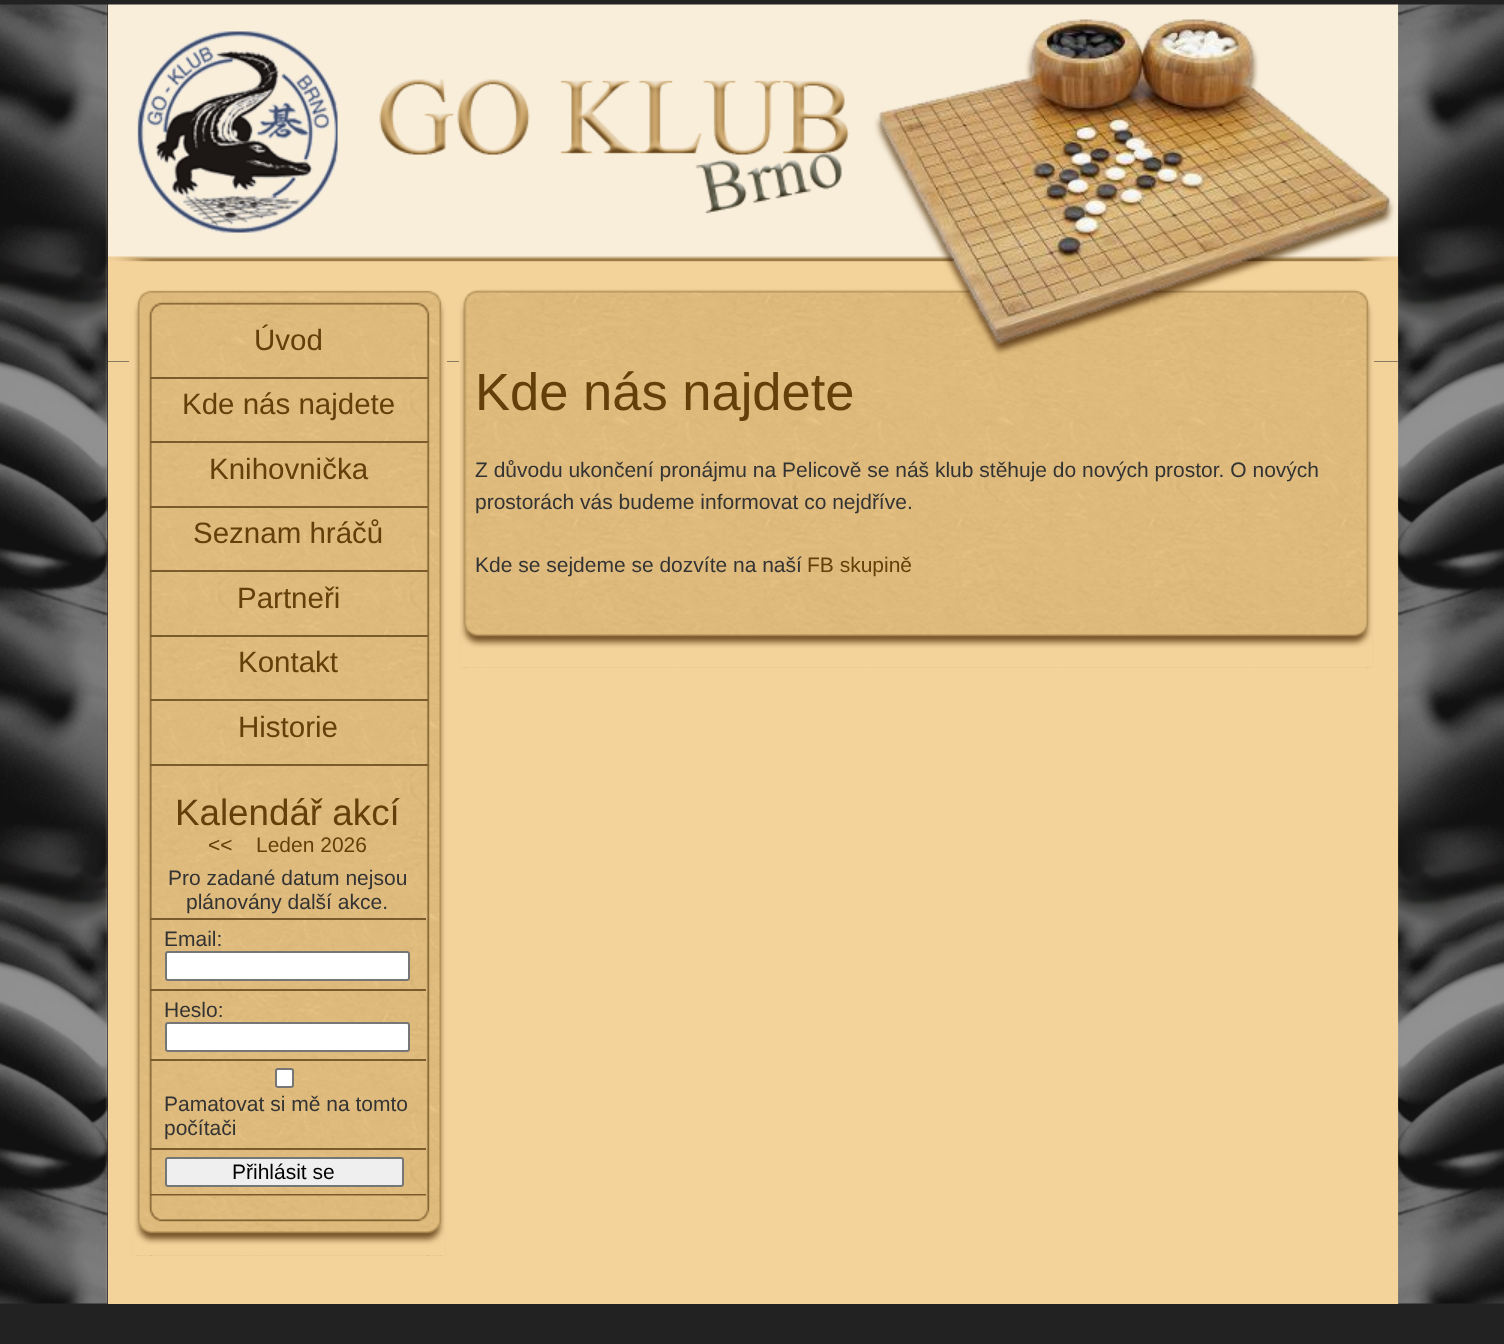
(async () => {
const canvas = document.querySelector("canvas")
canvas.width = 1504
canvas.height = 1344
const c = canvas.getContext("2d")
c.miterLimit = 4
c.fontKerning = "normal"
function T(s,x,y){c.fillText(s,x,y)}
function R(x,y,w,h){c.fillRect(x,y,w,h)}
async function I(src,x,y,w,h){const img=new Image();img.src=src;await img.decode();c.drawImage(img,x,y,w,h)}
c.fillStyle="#222"
R(0,0,1504,1344)
await I("1.png",0,4,1504,1300)
await I("2.png",108,4,1290,358)
c.fillStyle="#f3d39a"
R(108,362,1290,942)
await I("3.png",129,313,318,943)
c.fillStyle="#7b5b2b"
R(150,377,278,2)
c.font="29.5px Liberation Sans"
c.fillStyle="#63400a"
T("Úvod",254,350)
c.fillStyle="#7b5b2b"
R(150,441,278,2)
c.fillStyle="#63400a"
T("Kde nás najdete",182,414)
c.fillStyle="#7b5b2b"
R(150,506,278,2)
c.fillStyle="#63400a"
T("Knihovnička",209,479)
c.fillStyle="#7b5b2b"
R(150,570,278,2)
c.fillStyle="#63400a"
T("Seznam hráčů",193,543)
c.fillStyle="#7b5b2b"
R(150,635,278,2)
c.fillStyle="#63400a"
T("Partneři",237,608)
c.fillStyle="#7b5b2b"
R(150,699,278,2)
c.fillStyle="#63400a"
T("Kontakt",238,672)
c.fillStyle="#7b5b2b"
R(150,764,278,2)
c.fillStyle="#63400a"
T("Historie",238,737)
c.font="36.75px Liberation Sans"
T("Kalendář akcí",175,825)
c.font="21px Liberation Sans"
T("<<",208,852)
T("Leden 2026",256,852)
c.fillStyle="#7b5b2b"
R(150,918,276,2)
c.fillStyle="#333"
T("Pro zadané datum nejsou",168,885)
T("plánovány další akce.",186,909)
c.fillStyle="#7b5b2b"
R(150,989,276,2)
c.fillStyle="#333"
T("Email:",164,946)
c.fillStyle="#fff"
c.beginPath()
c.roundRect(166,952,243,28,2)
c.fill()
c.strokeStyle="#767676"
c.lineWidth=2
c.stroke()
c.fillStyle="#7b5b2b"
R(150,1059,276,2)
c.fillStyle="#333"
T("Heslo:",164,1017)
c.fillStyle="#fff"
c.beginPath()
c.roundRect(166,1023,243,28,2)
c.fill()
c.stroke()
c.fillStyle="#7b5b2b"
R(150,1148,276,2)
c.fillStyle="#fff"
c.beginPath()
c.roundRect(276,1069,17,18,2)
c.fill()
c.stroke()
c.fillStyle="#333"
T("Pamatovat si mě na tomto",164,1111)
T("počítači",164,1135)
c.fillStyle="#7b5b2b"
R(150,1194,276,2)
c.fillStyle="#efefef"
c.beginPath()
c.roundRect(166,1158,237,28,2)
c.fill()
c.stroke()
c.fillStyle="#000"
T("Přihlásit se",232,1179)
await I("4.png",134,1195,311,61)
await I("5.png",459,360,915,308)
c.font="52.5px Liberation Sans"
c.fillStyle="#63400a"
T("Kde nás najdete",475,410)
c.font="21px Liberation Sans"
c.fillStyle="#333"
T("Z důvodu ukončení pronájmu na Pelicově se náš klub stěhuje do nových prostor. O nových",475,477)
T("prostorách vás budeme informovat co nejdříve.",475,509)
T("Kde se sejdeme se dozvíte na naší",475,572)
c.fillStyle="#63400a"
T("FB skupině",807,572)
await I("6.png",460,580,912,88)
})()
